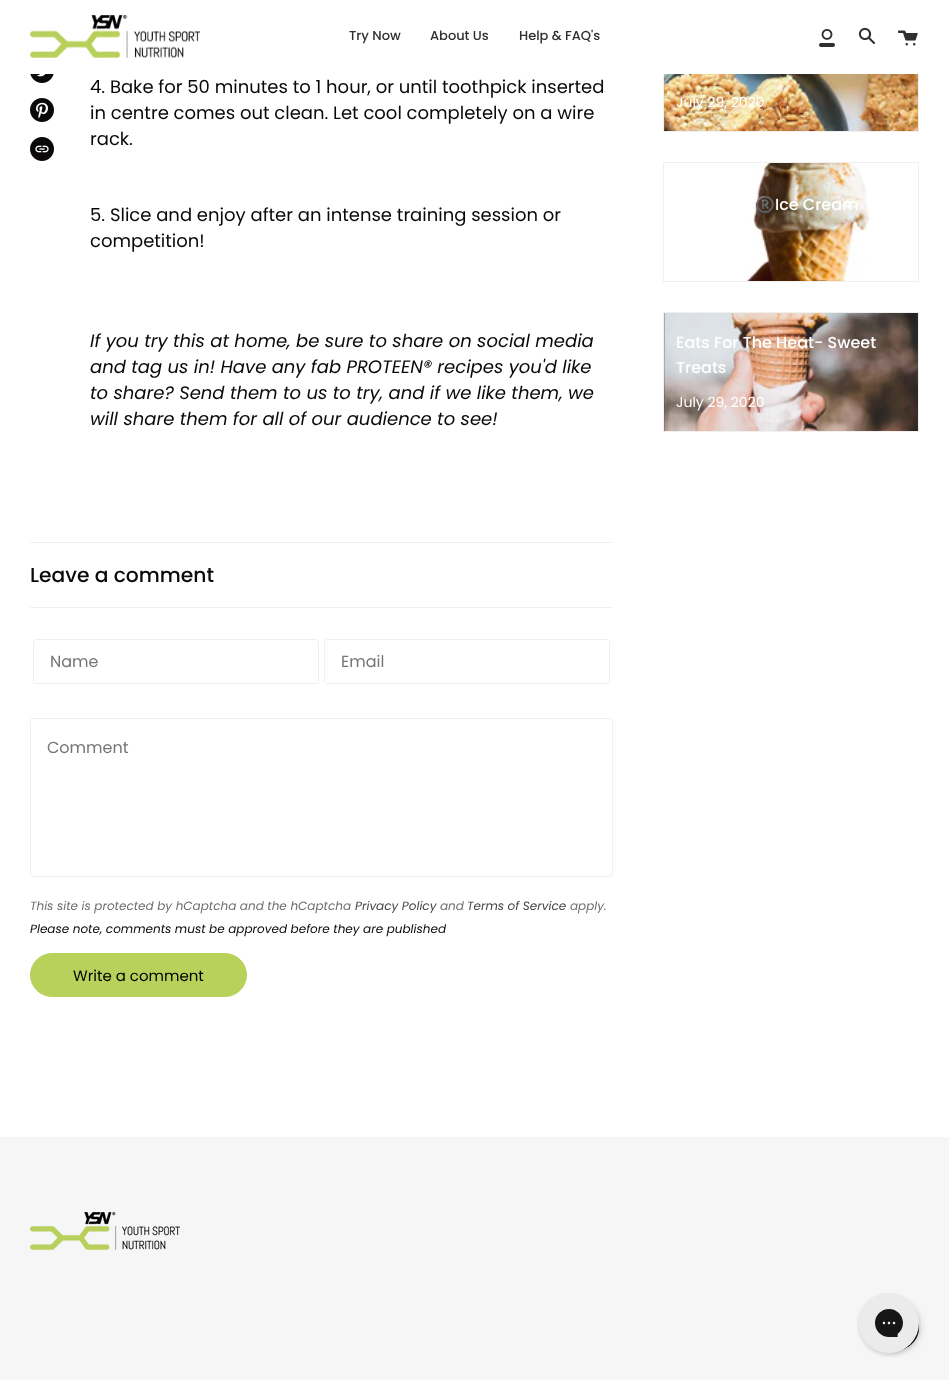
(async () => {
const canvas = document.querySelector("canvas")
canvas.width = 949
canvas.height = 1380
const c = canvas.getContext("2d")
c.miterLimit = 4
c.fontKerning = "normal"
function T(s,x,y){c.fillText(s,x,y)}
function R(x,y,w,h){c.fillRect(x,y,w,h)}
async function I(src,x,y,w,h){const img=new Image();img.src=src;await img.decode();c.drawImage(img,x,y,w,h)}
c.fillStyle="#fff"
R(0,0,949,1380)
c.strokeStyle="#f0f0f0"
c.strokeRect(663.5,12.5,255,119)
R(663,12,256,62)
await I("1.png",30,15,170,43)
c.font="500 13px Poppins"
c.fillStyle="#2f2f2f"
T("Try Now",349,40)
T("About Us",430,40)
T("Help & FAQ's",519,40)
await I("2.png",819,29,16,18)
await I("3.png",858,27,17,17)
await I("4.png",898,30,20,16)
await I("5.png",30,74,24,9)
await I("6.png",30,98,24,24)
await I("7.png",30,137,24,24)
c.font="18px Poppins"
c.fillStyle="#0a0808"
T("4. Bake for 50 minutes to 1 hour, or until toothpick inserted",90,93)
T("in centre comes out clean. Let cool completely on a wire",90,119)
T("rack.",90,145)
T("5. Slice and enjoy after an intense training session or",90,221)
T("competition!",90,247)
c.font="italic 18px Poppins"
T("If you try this at home, be sure to share on social media",90,347)
T("and tag us in! Have any fab PROTEEN® recipes you'd like",90,373)
T("to share? Send them to us to try, and if we like them, we",90,399)
T("will share them for all of our audience to see!",90,425)
await I("8.png",664,74,254,57)
c.font="14px Poppins"
c.fillStyle="#fff"
T("July 29, 2020",676,107)
c.strokeRect(663.5,162.5,255,119)
await I("9.png",745,163,126,118)
c.font="16px Noto Color Emoji"
T("®️",755,210)
c.font="500 16px Poppins"
T("Ice Cream",775,210)
c.strokeRect(663.5,312.5,255,119)
await I("10.png",664,313,254,118)
T("Eats For The Heat- Sweet",676,348)
T("Treats",676,373)
c.font="14px Poppins"
T("July 29, 2020",676,407)
c.fillStyle="#f0f0f0"
R(30,542,583,1)
c.font="500 20.25px Poppins"
c.fillStyle="#0a0808"
T("Leave a comment",30,582)
c.fillStyle="#f0f0f0"
R(30,607,583,1)
c.beginPath()
c.roundRect(33.5,639.5,285,44,2.5)
c.stroke()
c.font="16px Poppins"
c.fillStyle="#757575"
T("Name",50,667)
c.beginPath()
c.roundRect(324.5,639.5,285,44,2.5)
c.stroke()
T("Email",341,667)
c.beginPath()
c.roundRect(30.5,718.5,582,158,2.5)
c.stroke()
T("Comment",47,753)
c.font="italic 12px Poppins"
c.fillStyle="#6d6d6d"
T("This site is protected by hCaptcha and the hCaptcha",30,910)
c.fillStyle="#444"
T("Privacy Policy",355,910)
c.fillStyle="#6d6d6d"
T("and",440,910)
c.fillStyle="#444"
T("Terms of Service",467,910)
c.fillStyle="#6d6d6d"
T("apply.",570,910)
c.fillStyle="#0a0808"
T("Please note, comments must be approved before they are published",30,933)
c.fillStyle="#b8d15a"
c.beginPath()
c.roundRect(30.5,953.5,216,43,21.5)
c.fill()
c.strokeStyle="#b8d15a"
c.stroke()
c.font="15px Poppins"
c.fillStyle="#000"
T("Write a comment",73,981)
c.fillStyle="#f6f6f6"
R(0,1137,949,243)
await I("11.png",30,1212,150,38)
c.fillStyle="#00000033"
c.filter="blur(5px)"
c.beginPath()
c.roundRect(875,1306,44,44,22)
c.fill()
c.filter="none"
c.fillStyle="#0a0808"
c.beginPath()
c.arc(897,1328,21.5,0,7)
c.fill()
c.strokeStyle="#0a0808"
c.stroke()
await I("12.png",857,1293,64,64)
})()
